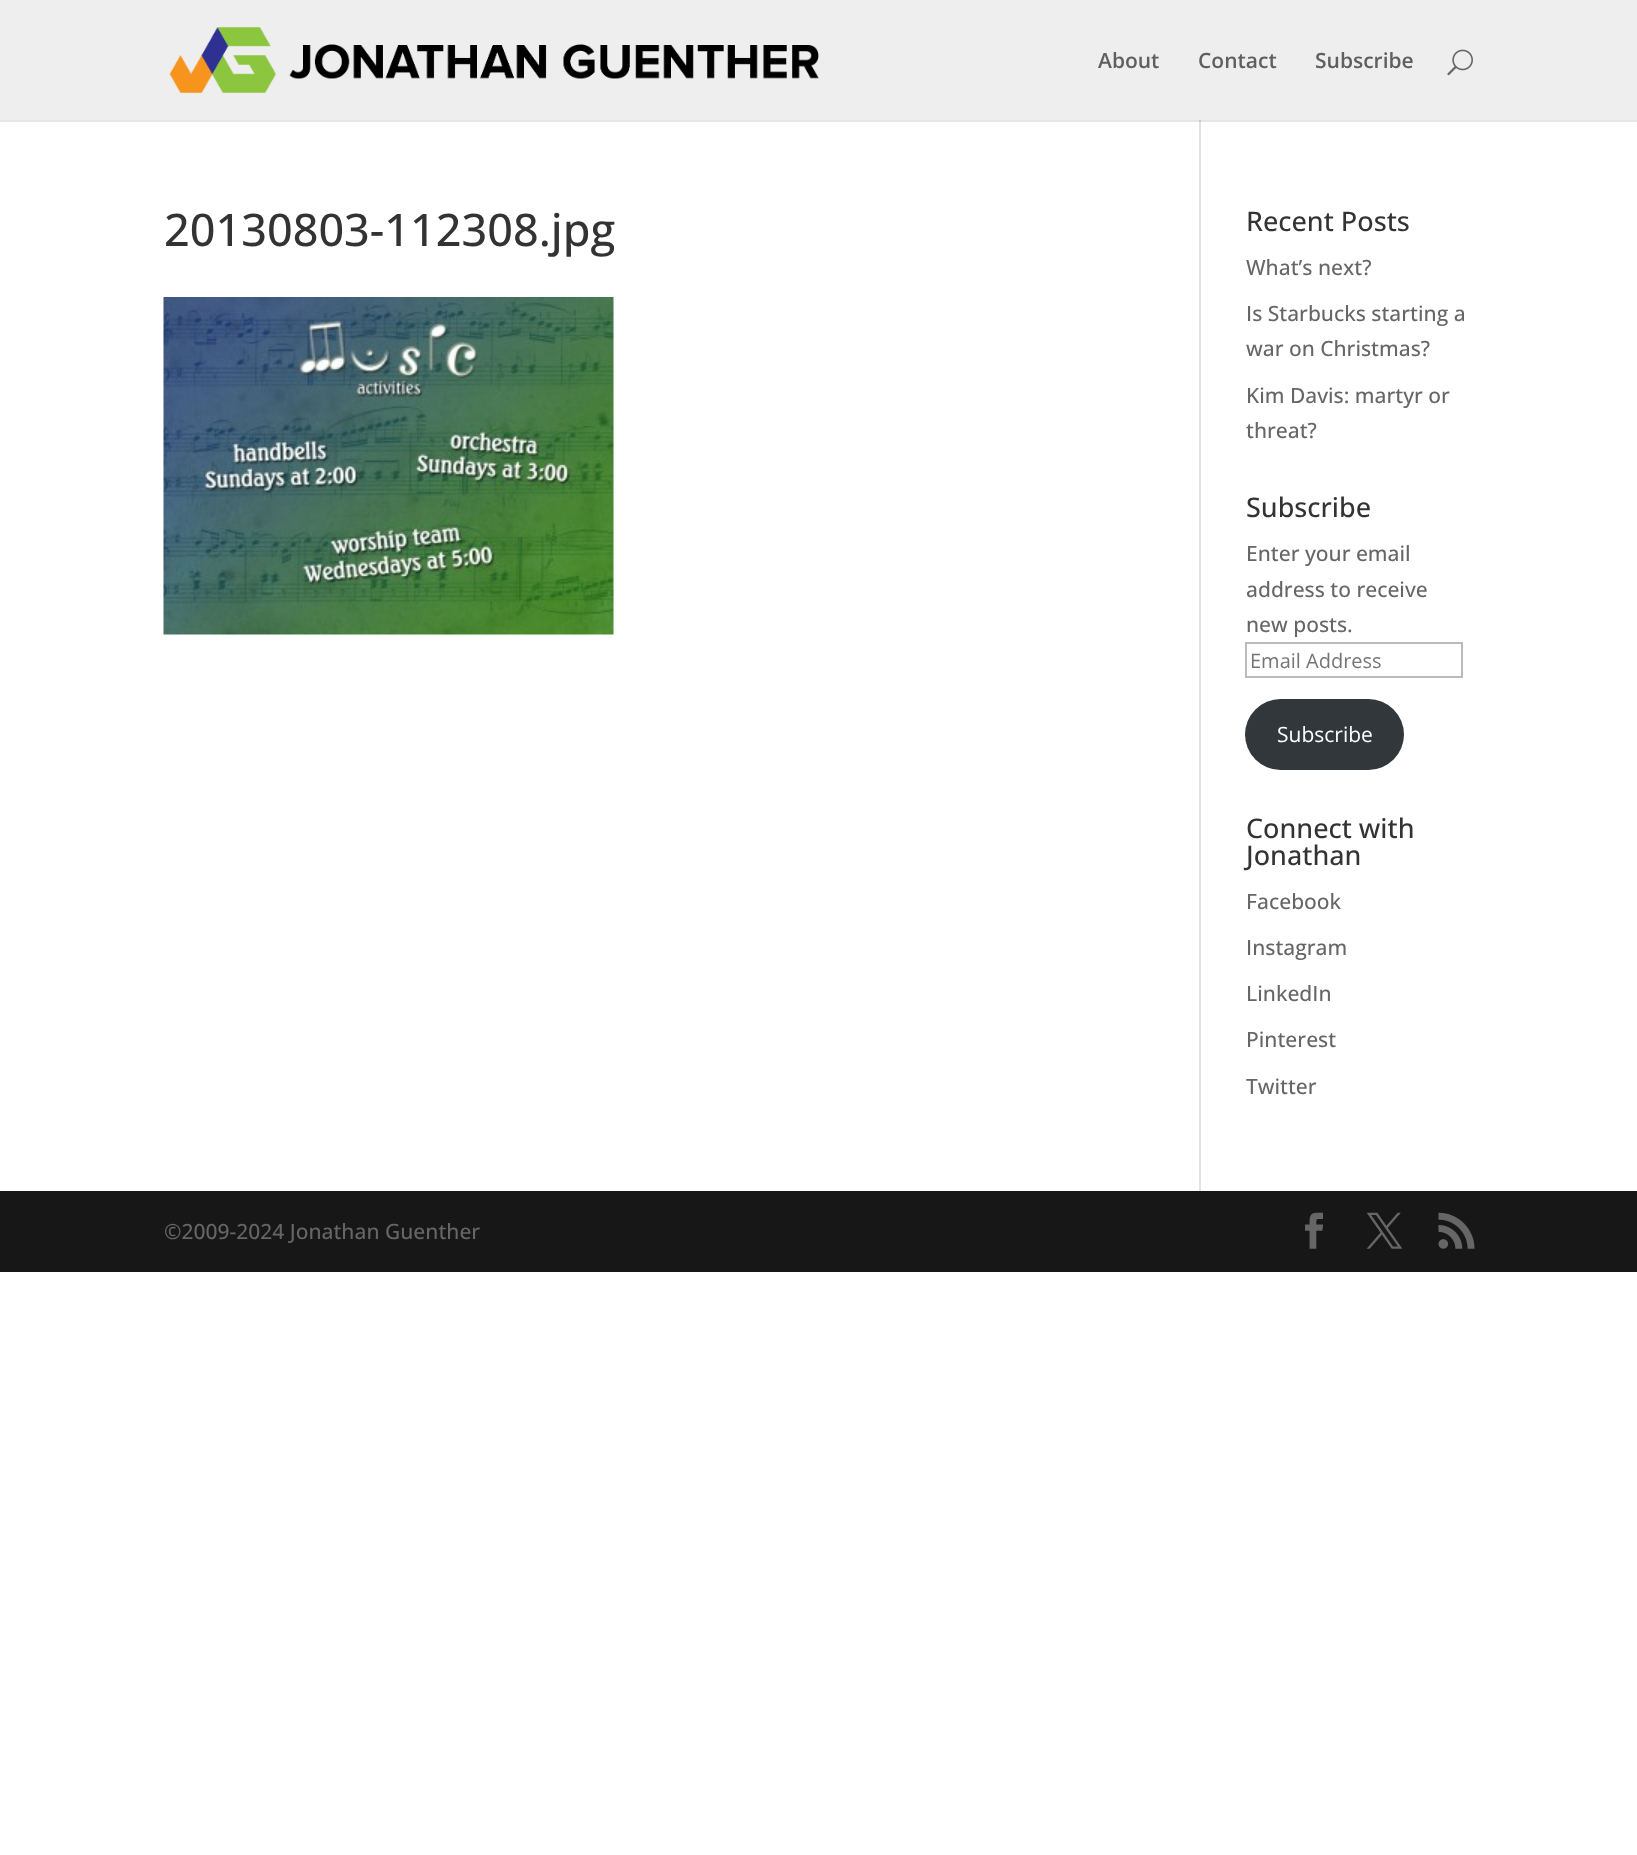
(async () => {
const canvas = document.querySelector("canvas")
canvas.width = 1637
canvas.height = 1855
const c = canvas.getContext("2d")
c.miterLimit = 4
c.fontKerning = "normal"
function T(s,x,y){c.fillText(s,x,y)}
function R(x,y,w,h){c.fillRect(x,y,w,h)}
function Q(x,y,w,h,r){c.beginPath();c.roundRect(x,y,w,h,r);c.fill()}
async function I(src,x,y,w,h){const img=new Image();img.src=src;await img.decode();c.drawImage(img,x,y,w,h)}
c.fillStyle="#fff"
R(0,0,1637,1855)
c.fillStyle="#e6e6e6"
R(0,120,1637,2)
c.fillStyle="#eee"
R(0,0,1637,120)
await I("1.png",169,27,650,66)
c.font="600 21px Open Sans"
c.fillStyle="#5f5f5f"
T("About",1098,68)
T("Contact",1198,68)
T("Subscribe",1315,68)
await I("2.png",1447,49,26,27)
c.fillStyle="#e2e2e2"
R(1199,120,2,1071)
c.fillStyle="#cbcbcb"
R(1199,120,2,2)
c.font="500 45px Open Sans"
c.fillStyle="#333"
T("20130803-112308.jpg",164,246)
await I("3.png",163,297,451,338)
c.font="500 27px Open Sans"
T("Recent Posts",1246,231)
c.font="500 21px Open Sans"
c.fillStyle="#666"
T("What’s next?",1246,275)
T("Is Starbucks starting a",1246,321)
T("war on Christmas?",1246,356)
T("Kim Davis: martyr or",1246,403)
T("threat?",1246,438)
c.font="500 27px Open Sans"
c.fillStyle="#333"
T("Subscribe",1246,517)
c.font="500 21px Open Sans"
c.fillStyle="#666"
T("Enter your email",1246,561)
T("address to receive",1246,597)
T("new posts.",1246,632)
c.strokeStyle="#bbb"
c.lineWidth=2
c.strokeRect(1246,643,216,34)
c.font="20px Open Sans"
c.fillStyle="#757575"
T("Email Address",1250,668)
c.fillStyle="#32373c"
Q(1245,699,159,71,35.5)
c.font="21px Open Sans"
c.fillStyle="#fff"
T("Subscribe",1277,742)
c.font="500 27px Open Sans"
c.fillStyle="#333"
T("Connect with",1246,838)
T("Jonathan",1246,865)
c.font="500 21px Open Sans"
c.fillStyle="#666"
T("Facebook",1246,909)
T("Instagram",1246,955)
T("LinkedIn",1246,1001)
T("Pinterest",1246,1047)
T("Twitter",1246,1094)
c.fillStyle="#171717"
R(0,1191,1637,81)
c.fillStyle="#666"
T("©2009-2024 Jonathan Guenther",164,1239)
await I("4.png",1305,1212,18,37)
await I("5.png",1366,1212,37,37)
await I("6.png",1438,1212,37,37)
})()
